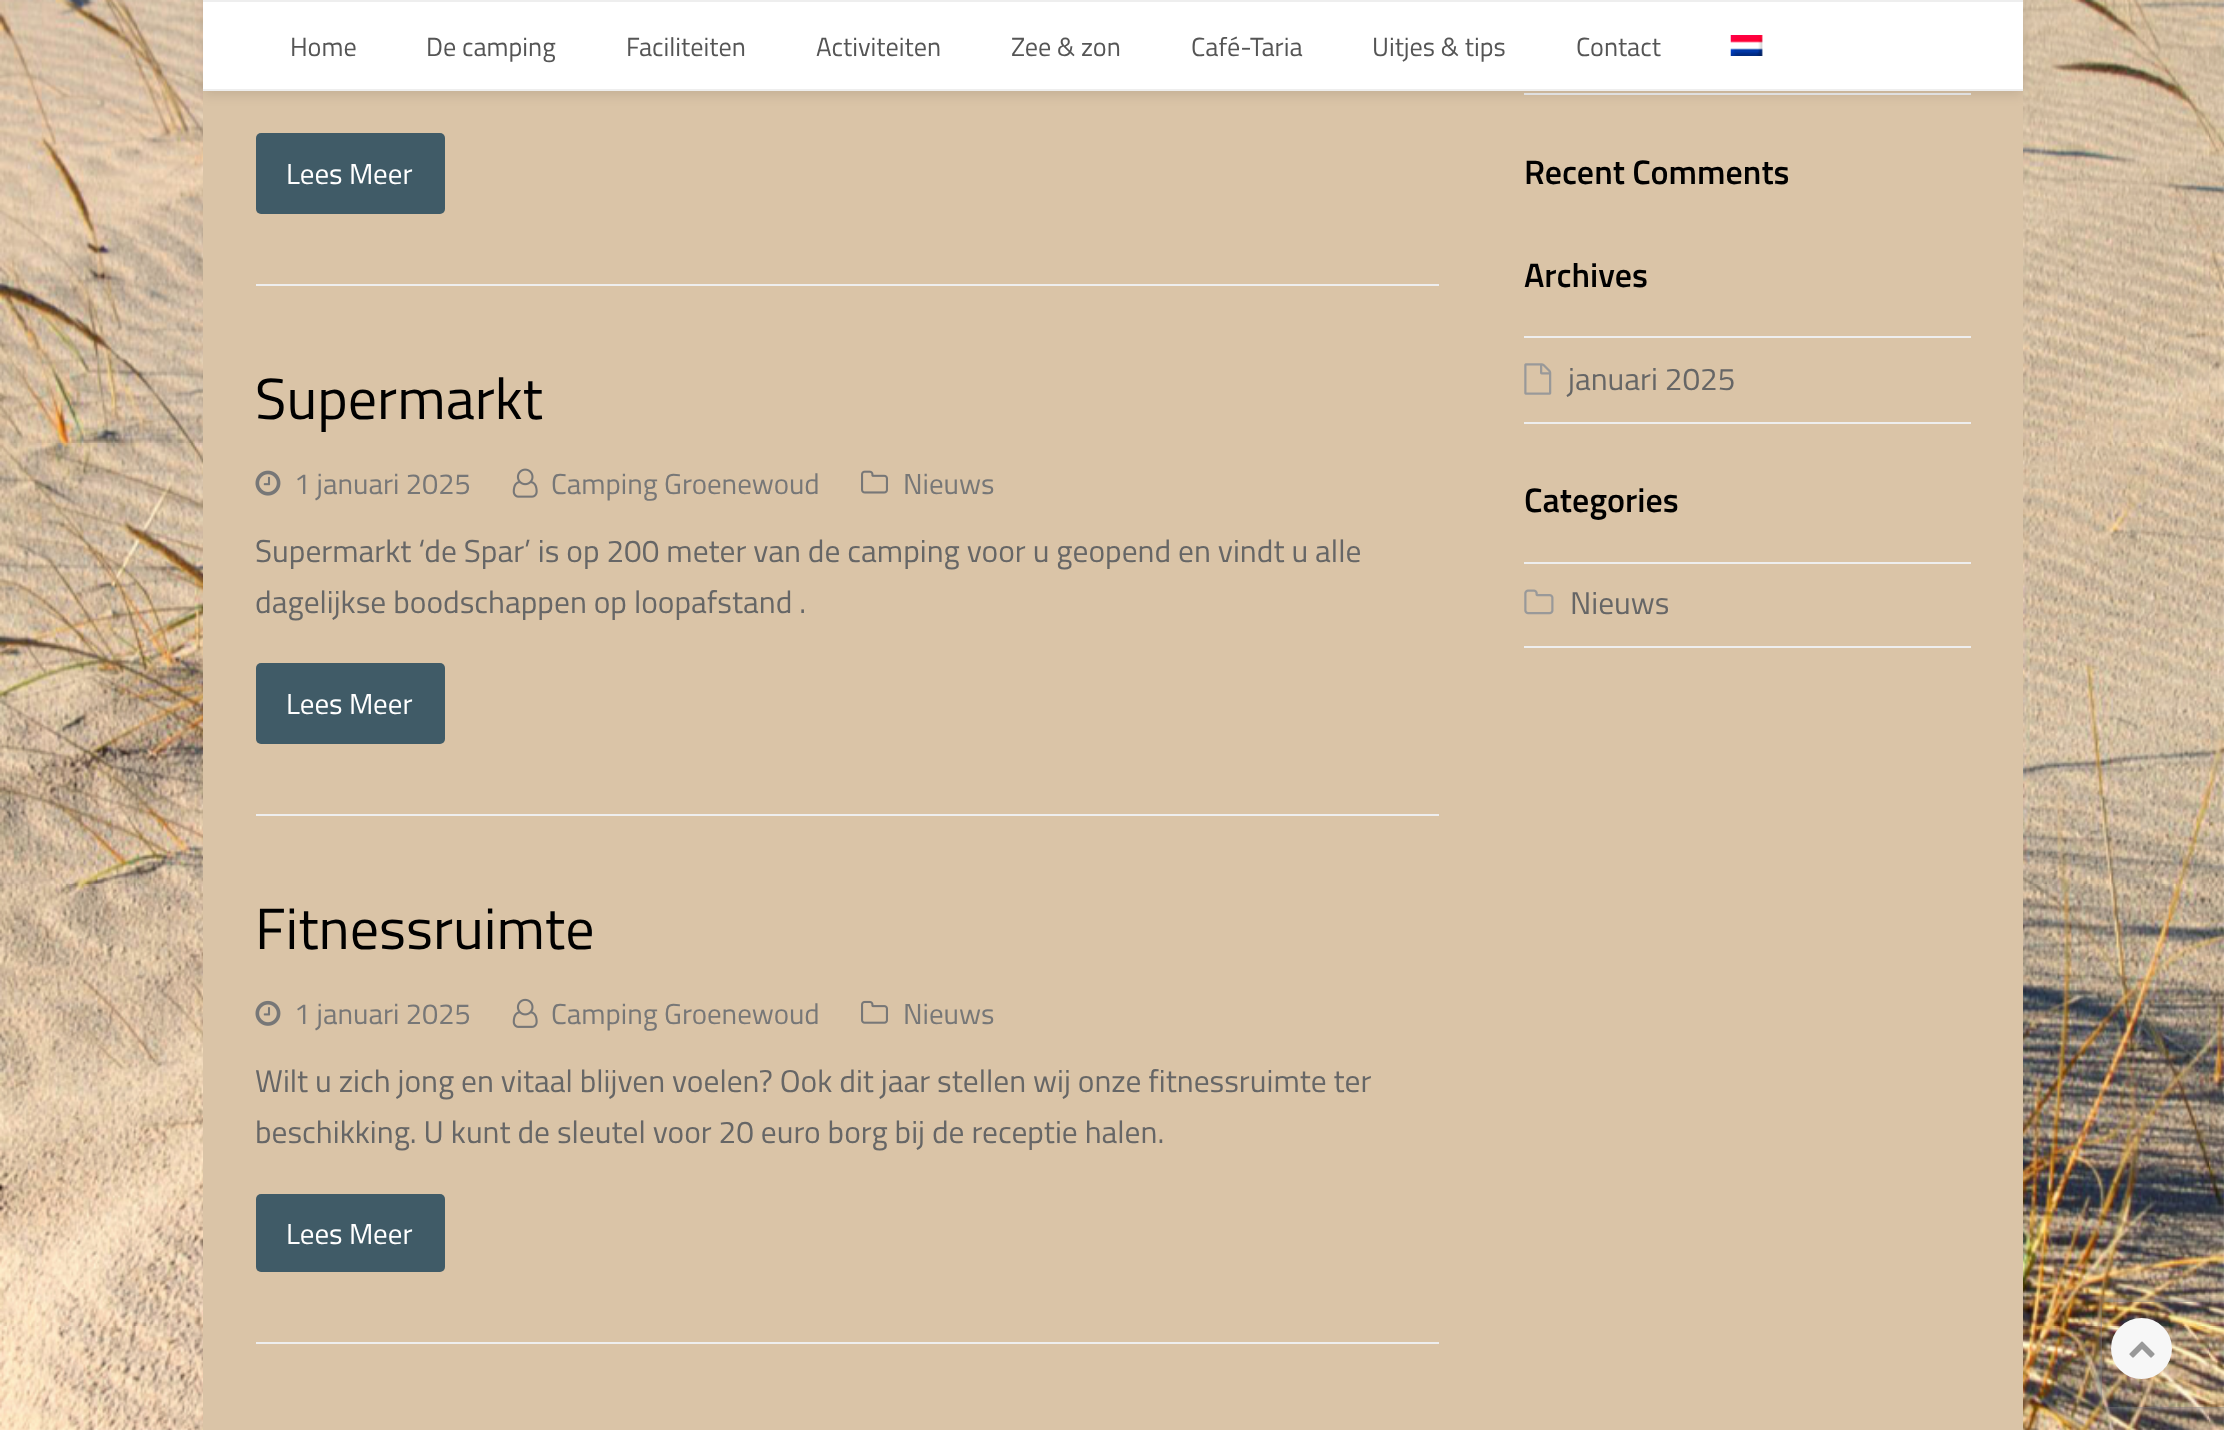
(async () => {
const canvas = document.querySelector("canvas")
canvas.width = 2224
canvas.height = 1430
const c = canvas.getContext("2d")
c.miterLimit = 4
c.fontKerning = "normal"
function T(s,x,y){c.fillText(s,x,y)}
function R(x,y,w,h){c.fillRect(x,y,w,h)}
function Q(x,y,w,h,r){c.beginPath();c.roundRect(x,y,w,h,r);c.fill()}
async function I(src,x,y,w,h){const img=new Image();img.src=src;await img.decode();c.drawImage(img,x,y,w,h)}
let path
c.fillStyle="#fff"
R(0,0,2224,1430)
await I("1.png",0,0,2224,1430)
c.fillStyle="#dac4a7"
R(203,91,1820,1339)
c.fillStyle="#eee"
R(1524,93,447,2)
c.fillStyle="#0000001a"
c.filter="blur(6px)"
c.beginPath()
c.rect(203,4,1820,91)
c.fill()
c.filter="none"
c.fillStyle="#fff"
R(203,2,1820,87)
c.fillStyle="#eee"
R(203,0,1820,2)
R(203,89,1820,2)
c.font="26.25px Titillium Web"
c.fillStyle="#555"
T("Home",290,56)
T("De camping",426,56)
T("Faciliteiten",626,56)
T("Activiteiten",816,56)
T("Zee & zon",1011,56)
T("Café-Taria",1191,56)
T("Uitjes & tips",1372,56)
T("Contact",1576,56)
await I("2.png",1730,35,33,21)
c.fillStyle="#eee"
R(256,284,1183,2)
c.fillStyle="#405b67"
Q(256,133,189,81,5)
c.font="29px Titillium Web"
c.fillStyle="#fff"
T("Lees Meer",286,184)
c.fillStyle="#eee"
R(256,814,1183,2)
c.font="58px Titillium Web"
c.fillStyle="#000"
T("Supermarkt",255,419)
await I("3.png",255,470,26,26)
c.font="29px Titillium Web"
c.fillStyle="#777"
T("1 januari 2025",294,494)
await I("4.png",512,468,26,30)
T("Camping Groenewoud",551,494)
await I("5.png",861,470,27,24)
T("Nieuws",903,494)
c.font="31.5px Titillium Web"
c.fillStyle="#666"
T("Supermarkt ‘de Spar’ is op 200 meter van de camping voor u geopend en vindt u alle",255,562)
T("dagelijkse boodschappen op loopafstand .",255,613)
c.fillStyle="#405b67"
Q(256,663,189,81,5)
c.font="29px Titillium Web"
c.fillStyle="#fff"
T("Lees Meer",286,714)
c.fillStyle="#eee"
R(256,1342,1183,2)
c.font="58px Titillium Web"
c.fillStyle="#000"
T("Fitnessruimte",255,949)
await I("6.png",255,1000,26,26)
c.font="29px Titillium Web"
c.fillStyle="#777"
T("1 januari 2025",294,1024)
await I("7.png",512,998,26,30)
T("Camping Groenewoud",551,1024)
await I("8.png",861,1000,27,24)
T("Nieuws",903,1024)
c.font="31.5px Titillium Web"
c.fillStyle="#666"
T("Wilt u zich jong en vitaal blijven voelen? Ook dit jaar stellen wij onze fitnessruimte ter",255,1092)
T("beschikking. U kunt de sleutel voor 20 euro borg bij de receptie halen.",255,1143)
c.fillStyle="#405b67"
Q(256,1194,189,78,5)
c.font="29px Titillium Web"
c.fillStyle="#fff"
T("Lees Meer",286,1244)
c.font="600 34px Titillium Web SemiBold"
c.fillStyle="#000"
T("Recent Comments",1524,184)
T("Archives",1524,287)
c.fillStyle="#eee"
R(1524,336,447,2)
R(1524,422,447,2)
await I("9.png",1524,363,28,32)
c.font="31.5px Titillium Web"
c.fillStyle="#666"
T("januari 2025",1568,390)
c.font="600 34px Titillium Web SemiBold"
c.fillStyle="#000"
T("Categories",1524,512)
c.fillStyle="#eee"
R(1524,562,447,2)
R(1524,646,447,2)
await I("10.png",1524,589,30,26)
c.font="31.5px Titillium Web"
c.fillStyle="#666"
T("Nieuws",1570,614)
c.save()
path = new Path2D("M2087 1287h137v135h-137zm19 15h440c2 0 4 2 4 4v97c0 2-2 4-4 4h-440c-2 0-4-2-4-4v-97c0-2 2-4 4-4z")
c.clip(path,"evenodd")
c.fillStyle="#808080"
c.filter="blur(4.5px)"
c.beginPath()
c.roundRect(2102,1302,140,105,4)
c.fill()
c.filter="none"
c.restore()
c.fillStyle="#f7f7f7"
c.beginPath()
c.arc(2141.5,1348.5,30.5,0,7)
c.fill()
await I("11.png",2129,1341,26,17)
})()
